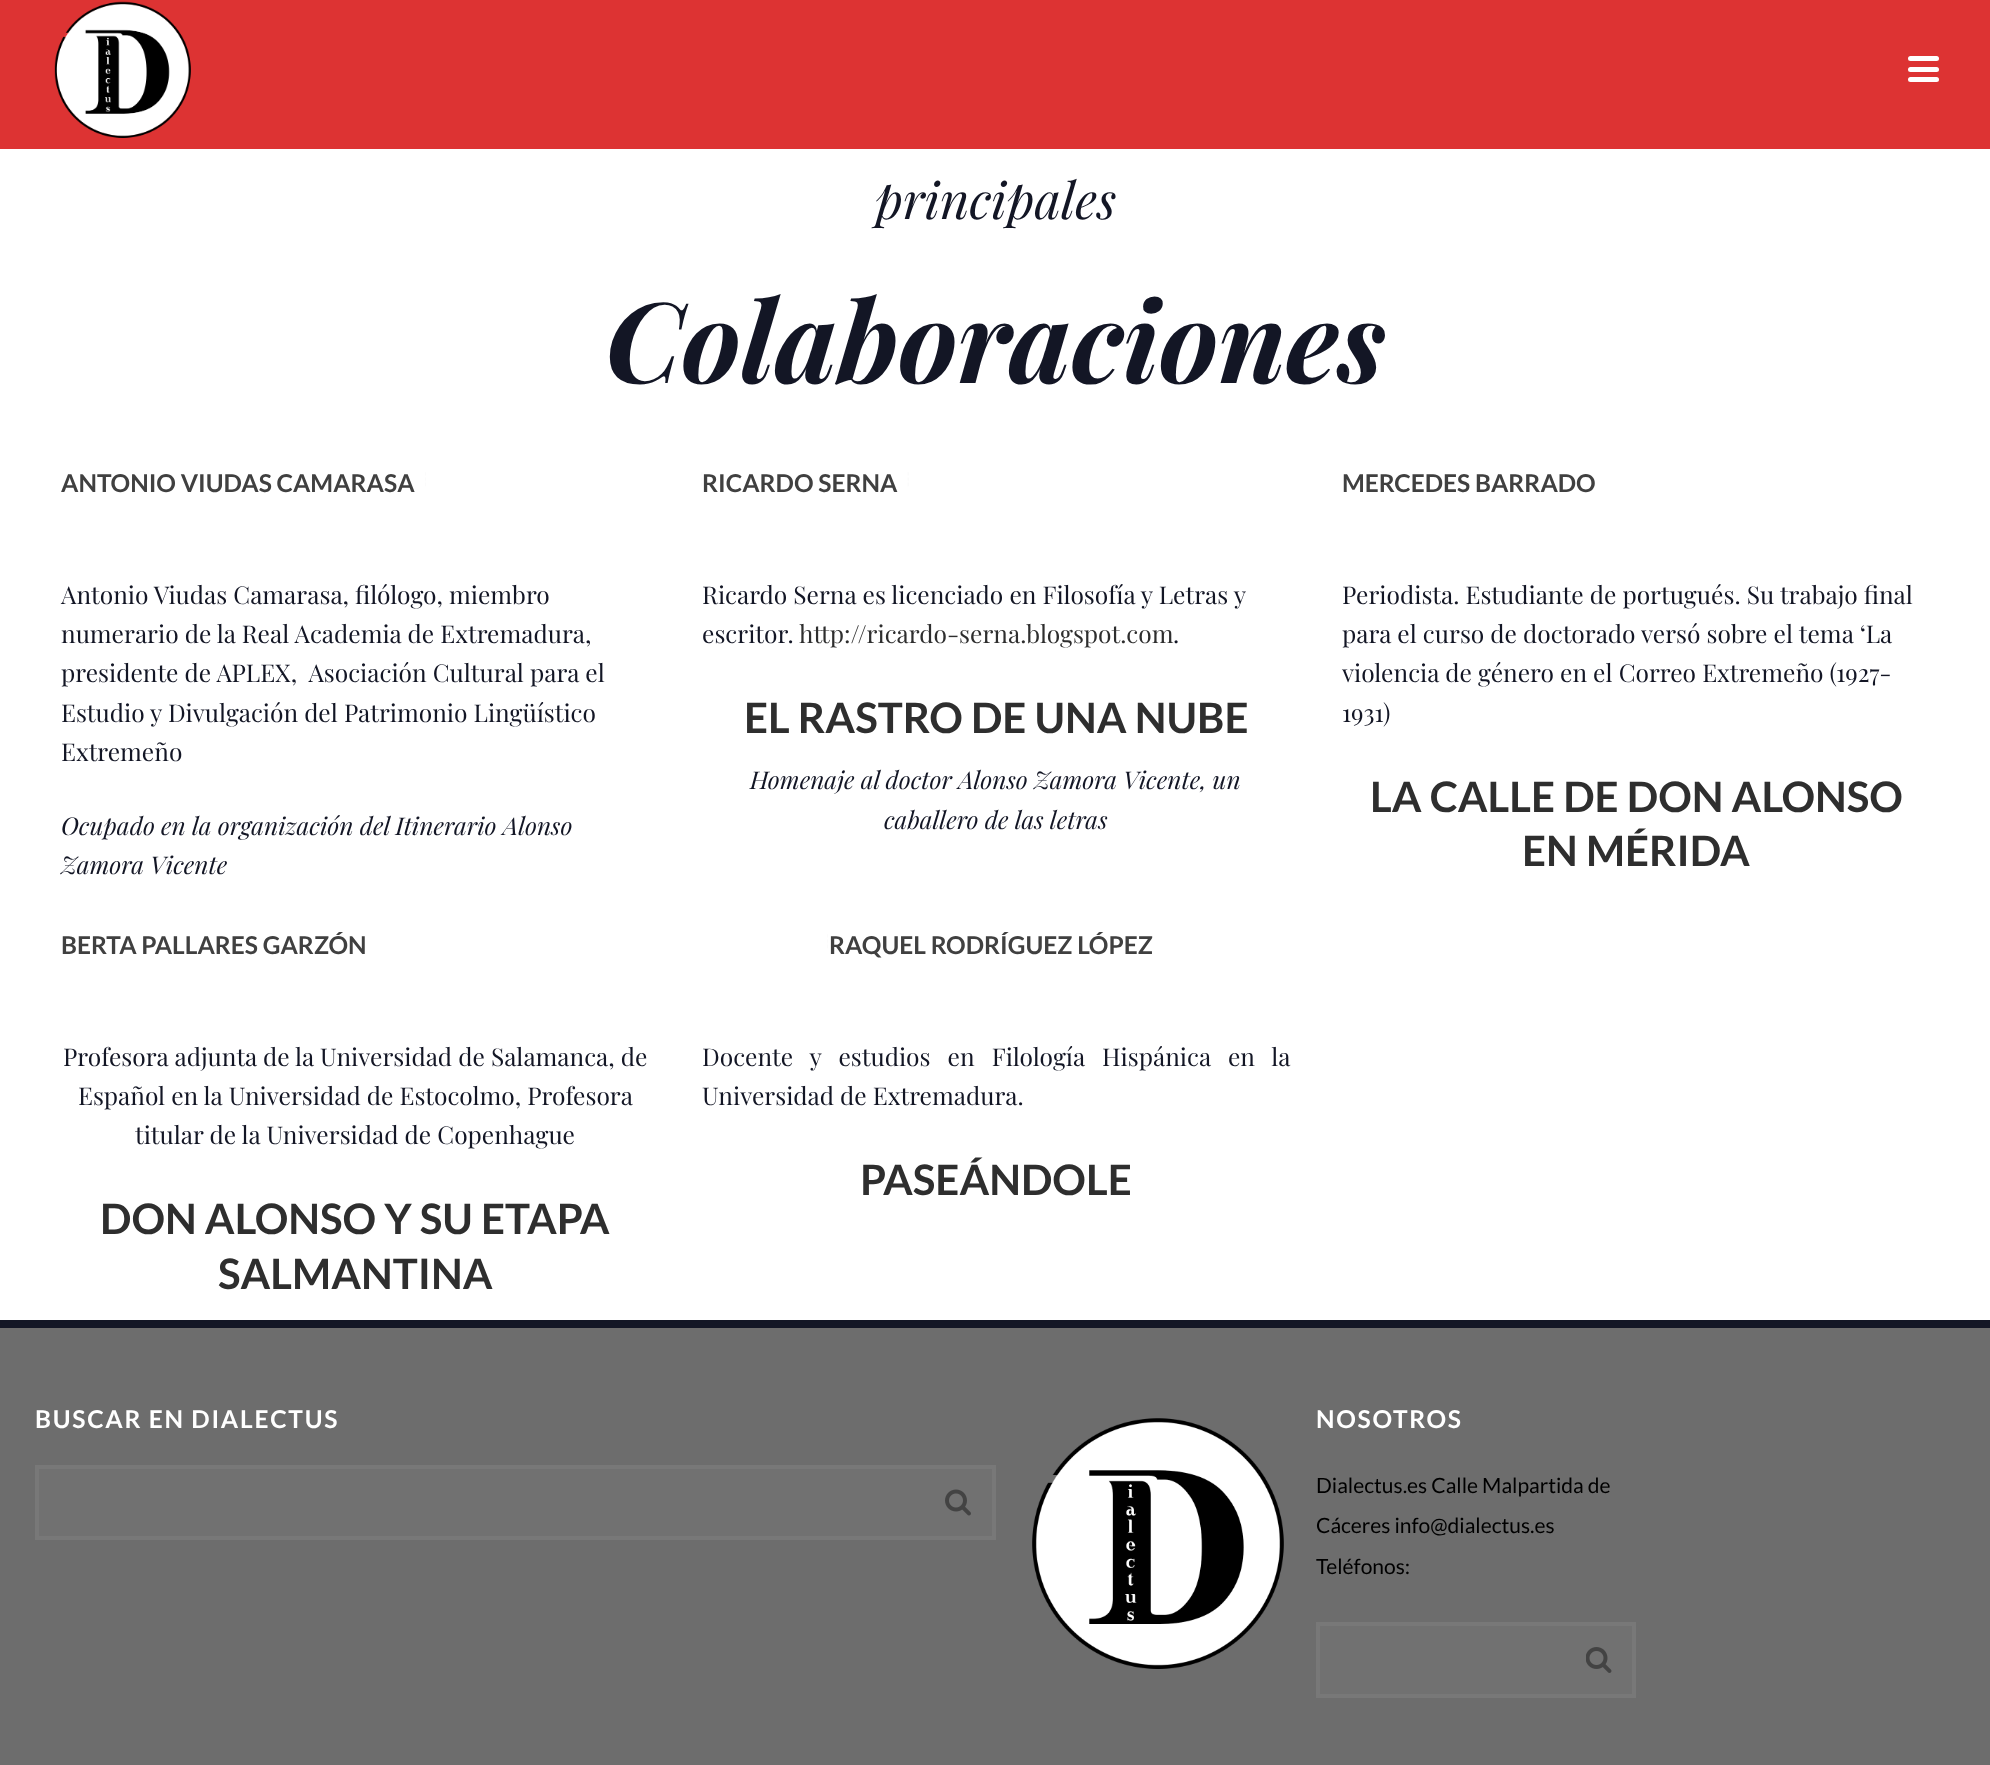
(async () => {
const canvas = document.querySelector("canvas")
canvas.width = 1990
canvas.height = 1765
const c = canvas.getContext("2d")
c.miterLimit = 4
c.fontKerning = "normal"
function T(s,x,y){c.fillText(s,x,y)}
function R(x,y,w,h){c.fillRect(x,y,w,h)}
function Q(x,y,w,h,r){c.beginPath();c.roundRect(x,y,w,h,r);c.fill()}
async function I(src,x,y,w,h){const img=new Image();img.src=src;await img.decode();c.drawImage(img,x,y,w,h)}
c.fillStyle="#fff"
R(0,0,1990,1765)
c.fillStyle="#d33"
R(0,0,1990,149)
await I("1.png",54,1,137,137)
c.fillStyle="#fff"
Q(1908,56,31,5,2.5)
Q(1908,67,31,5,2.5)
Q(1908,77,31,5,2.5)
c.font="italic 50.75px Playfair Display"
c.fillStyle="#131625"
T("principales",875,219)
c.font="italic bold 112px Playfair Display"
T("Colaboraciones",605,383)
await I("2.png",425,472,1,15)
c.font="bold 24.5px Lato"
c.fillStyle="#404040"
T("ANTONIO VIUDAS CAMARASA",61,492)
c.font="24.5px Playfair Display"
c.fillStyle="#131625"
T("Antonio Viudas Camarasa, filólogo, miembro",61,604)
T("numerario de la Real Academia de Extremadura,",61,643)
T("presidente de APLEX,  Asociación Cultural para el",61,682)
T("Estudio y Divulgación del Patrimonio Lingüístico",61,722)
T("Extremeño",61,761)
c.font="italic 24.5px Playfair Display"
T("Ocupado en la organización del Itinerario Alonso",61,835)
T("Zamora Vicente",61,874)
await I("3.png",701,472,208,15)
c.fillStyle="#fff"
R(703,472,204,15)
c.font="bold 24.5px Lato"
c.fillStyle="#404040"
T("RICARDO SERNA",702,492)
c.font="24.5px Playfair Display"
c.fillStyle="#131625"
T("Ricardo Serna es licenciado en Filosofía y Letras y",702,604)
T("escritor.",702,643)
c.fillStyle="#2e2e2e"
T("http://ricardo-serna.blogspot.com",799,643)
c.fillStyle="#131625"
T(".",1173,643)
c.font="bold 42px Lato"
c.fillStyle="#2e2e2e"
T("EL RASTRO DE UNA NUBE",744,733)
c.font="italic 24.5px Playfair Display"
c.fillStyle="#131625"
T("Homenaje al doctor Alonso Zamora Vicente, un",750,789)
T("caballero de las letras",884,829)
c.font="bold 24.5px Lato"
c.fillStyle="#404040"
T("MERCEDES BARRADO",1342,492)
c.font="24.5px Playfair Display"
c.fillStyle="#131625"
T("Periodista. Estudiante de portugués. Su trabajo final",1342,604)
T("para el curso de doctorado versó sobre el tema ‘La",1342,643)
T("violencia de género en el Correo Extremeño (1927-",1342,682)
T("1931)",1342,722)
c.font="bold 42px Lato"
c.fillStyle="#2e2e2e"
T("LA CALLE DE DON ALONSO",1370,812)
T("EN MÉRIDA",1522,866)
c.font="bold 24.5px Lato"
c.fillStyle="#404040"
T("BERTA PALLARES GARZÓN",61,954)
c.font="24.5px Playfair Display"
c.fillStyle="#131625"
T("Profesora adjunta de la Universidad de Salamanca, de",63,1066)
T("Español en la Universidad de Estocolmo, Profesora",78,1105)
T("titular de la Universidad de Copenhague",135,1144)
c.font="bold 42px Lato"
c.fillStyle="#2e2e2e"
T("DON ALONSO Y SU ETAPA",100,1234)
T("SALMANTINA",218,1289)
await I("2.png",827,934,1,15)
c.font="bold 24.5px Lato"
c.fillStyle="#404040"
T("RAQUEL RODRÍGUEZ LÓPEZ",829,954)
c.wordSpacing="11px"
c.font="24.5px Playfair Display"
c.fillStyle="#131625"
T("Docente y estudios en Filología Hispánica en la",702,1066)
c.wordSpacing="0px"
T("Universidad de Extremadura.",702,1105)
c.font="bold 42px Lato"
c.fillStyle="#2e2e2e"
T("PASEÁNDOLE",860,1195)
c.fillStyle="#6d6d6d"
R(0,1328,1990,437)
c.fillStyle="#131625"
R(0,1320,1990,8)
c.letterSpacing="1.75px"
c.font="bold 24.5px Lato"
c.fillStyle="#fff"
T("BUSCAR EN DIALECTUS",35,1428)
c.fillStyle="#717171"
c.beginPath()
c.rect(37,1467,957,71)
c.fill()
c.strokeStyle="#787878"
c.lineWidth=4
c.stroke()
await I("4.png",945,1489,26,27)
await I("5.png",1032,1418,252,251)
c.fillStyle="#fff"
T("NOSOTROS",1316,1428)
c.letterSpacing="0px"
c.font="21px Lato"
c.fillStyle="#000"
T("Dialectus.es Calle Malpartida de",1316,1493)
T("Cáceres info@dialectus.es",1316,1533)
T("Teléfonos:",1316,1574)
c.fillStyle="#717171"
c.beginPath()
c.rect(1318,1624,316,72)
c.fill()
c.stroke()
await I("6.png",1586,1647,26,26)
})()
